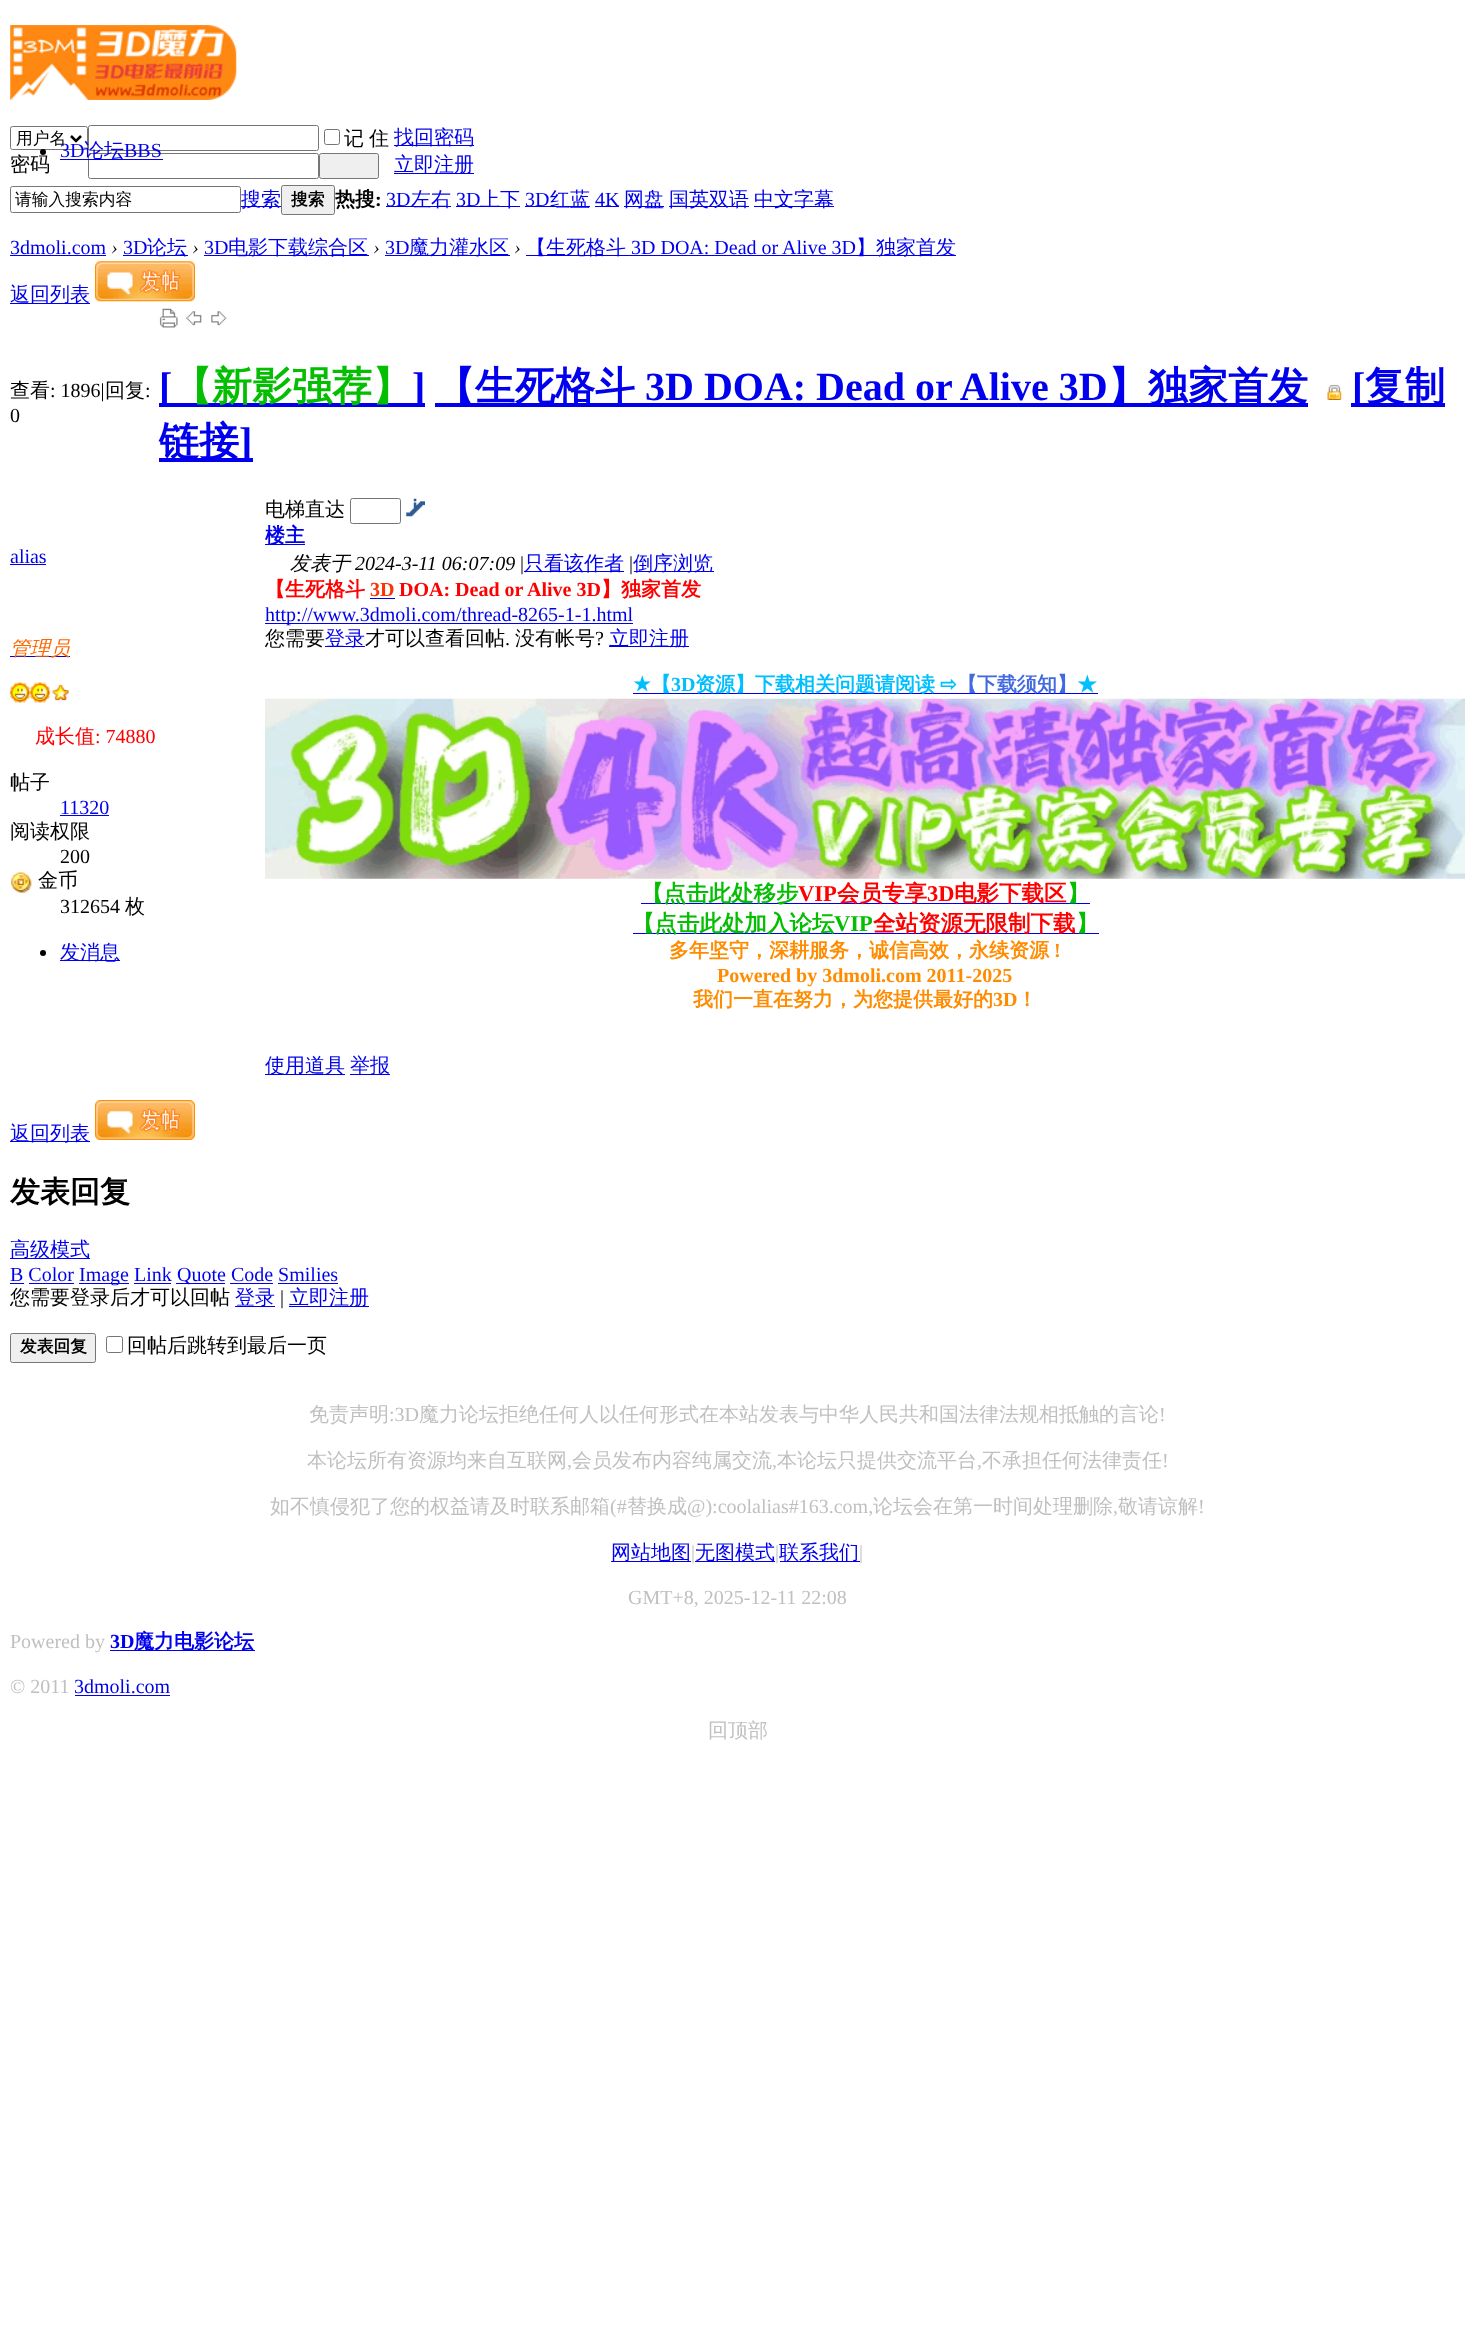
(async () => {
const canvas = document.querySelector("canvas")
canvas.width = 1475
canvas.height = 2331
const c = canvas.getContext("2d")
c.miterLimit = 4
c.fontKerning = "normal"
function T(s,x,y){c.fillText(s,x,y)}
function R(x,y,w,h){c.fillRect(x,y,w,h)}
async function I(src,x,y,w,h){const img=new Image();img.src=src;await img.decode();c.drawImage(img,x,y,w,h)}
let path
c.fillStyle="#fff"
R(0,0,1475,2331)
await I("1.png",10,25,227,75)
c.beginPath()
c.roundRect(10.5,126.5,77,23,2)
c.strokeStyle="#767676"
c.stroke()
path = new Path2D("M71 136l5 5l5-5")
c.strokeStyle="#000"
c.lineWidth=2.5
c.stroke(path)
c.font="500 16.75px WenQuanYi Zen Hei"
c.fillStyle="#000"
T("用户名",16,144)
c.beginPath()
c.roundRect(88.5,125.5,230,25,2)
c.strokeStyle="#767676"
c.lineWidth=1
c.stroke()
c.beginPath()
c.roundRect(324.5,129.5,15,15,2)
c.stroke()
c.wordSpacing="-1px"
c.font="500 20px WenQuanYi Zen Hei"
T("记 住",344,145)
c.fillStyle="#00e"
R(394,145,80,1)
c.wordSpacing="0px"
T("找回密码",394,144)
c.fillStyle="#000"
T("密码",10,171)
c.beginPath()
c.roundRect(88.5,153.5,230,25,2)
c.stroke()
c.fillStyle="#efefef"
c.beginPath()
c.roundRect(319.5,153.5,59,25,2)
c.fill()
c.stroke()
c.fillStyle="#00e"
R(394,173,80,1)
T("立即注册",394,171)
c.fillStyle="#000"
c.beginPath()
c.arc(43,152,3,0,7)
c.fill()
c.font="20px Liberation Serif"
c.fillStyle="#00e"
T("3D",60,157)
R(60,159,103,1)
c.font="500 20px WenQuanYi Zen Hei"
T("论坛",84,157)
c.font="20px Liberation Serif"
T("BBS",124,157)
c.beginPath()
c.roundRect(10.5,186.5,230,26,2)
c.stroke()
c.font="500 16.75px WenQuanYi Zen Hei"
c.fillStyle="#000"
T("请输入搜索内容",15,205)
c.fillStyle="#00e"
R(241,206,40,1)
c.font="500 20px WenQuanYi Zen Hei"
T("搜索",241,206)
c.fillStyle="#efefef"
c.beginPath()
c.roundRect(281.5,185.5,53,29,2)
c.fill()
c.stroke()
c.font="bold 16.75px WenQuanYi Zen Hei"
c.fillStyle="#000"
T("搜索",291,205)
c.font="bold 20px WenQuanYi Zen Hei"
T("热搜",335,206)
c.font="bold 20px Liberation Serif"
T(":",375,206)
c.fillStyle="#00e"
R(386,206,65,1)
c.font="20px Liberation Serif"
T("3D",386,206)
c.font="500 20px WenQuanYi Zen Hei"
T("左右",411,206)
R(456,206,64,1)
c.font="20px Liberation Serif"
T("3D",456,206)
c.font="500 20px WenQuanYi Zen Hei"
T("上下",480,206)
R(525,206,65,1)
c.font="20px Liberation Serif"
T("3D",525,206)
c.font="500 20px WenQuanYi Zen Hei"
T("红蓝",550,206)
c.font="20px Liberation Serif"
T("4K",595,206)
R(595,206,24,1)
R(624,206,40,1)
c.font="500 20px WenQuanYi Zen Hei"
T("网盘",624,206)
R(669,206,80,1)
T("国英双语",669,206)
R(754,206,80,1)
T("中文字幕",754,206)
c.font="20px Liberation Serif"
T("3dmoli.com",10,254)
R(10,255,96,1)
c.font="italic 20px Liberation Serif"
c.fillStyle="#000"
T("›",111,254)
c.font="20px Liberation Serif"
c.fillStyle="#00e"
T("3D",123,254)
R(123,255,65,1)
c.font="500 20px WenQuanYi Zen Hei"
T("论坛",147,254)
c.font="italic 20px Liberation Serif"
c.fillStyle="#000"
T("›",192,254)
c.font="20px Liberation Serif"
c.fillStyle="#00e"
T("3D",204,254)
R(204,255,165,1)
c.font="500 20px WenQuanYi Zen Hei"
T("电影下载综合区",228,254)
c.font="italic 20px Liberation Serif"
c.fillStyle="#000"
T("›",373,254)
c.font="20px Liberation Serif"
c.fillStyle="#00e"
T("3D",385,254)
R(385,255,125,1)
c.font="500 20px WenQuanYi Zen Hei"
T("魔力灌水区",409,254)
c.font="italic 20px Liberation Serif"
c.fillStyle="#000"
T("›",514,254)
c.fillStyle="#00e"
R(526,255,430,1)
c.font="500 20px WenQuanYi Zen Hei"
T("【生死格斗",526,254)
c.font="20px Liberation Serif"
T("3D DOA: Dead or Alive 3D",631,254)
c.font="500 20px WenQuanYi Zen Hei"
T("】独家首发",856,254)
R(10,303,80,1)
T("返回列表",10,301)
await I("2.png",95,261,100,41)
c.fillStyle="#000"
T("查看",10,397)
c.font="20px Liberation Serif"
T(": 1896|",50,397)
c.font="500 20px WenQuanYi Zen Hei"
T("回复",105,397)
c.font="20px Liberation Serif"
T(":",145,397)
T("0",10,422)
await I("3.png",159,308,19,20)
await I("4.png",186,311,16,15)
await I("5.png",211,311,16,15)
c.fillStyle="#00e"
R(159,403,266,4)
c.font="bold 40px Liberation Serif"
T("[",159,400)
c.font="bold 40px WenQuanYi Zen Hei"
c.fillStyle="#04be02"
T("【新影强荐】",172,400)
c.font="bold 40px Liberation Serif"
c.fillStyle="#00e"
T("]",412,400)
R(435,403,873,4)
c.font="bold 40px WenQuanYi Zen Hei"
T("【生死格斗",435,400)
c.font="bold 40px Liberation Serif"
T("3D DOA: Dead or Alive 3D",645,400)
c.font="bold 40px WenQuanYi Zen Hei"
T("】独家首发",1108,400)
await I("6.png",1327,385,15,15)
R(1351,403,94,4)
c.font="bold 40px Liberation Serif"
T("[",1352,400)
c.font="bold 40px WenQuanYi Zen Hei"
T("复制",1365,400)
R(159,458,94,4)
T("链接",159,455)
c.font="bold 40px Liberation Serif"
T("]",239,455)
c.font="20px Liberation Serif"
T("alias",10,563)
R(10,564,36,1)
R(10,656,60,1)
c.font="italic 500 20px WenQuanYi Zen Hei"
c.fillStyle="#f60"
T("管理员",10,655)
await I("7.png",10,682,20,21)
await I("8.png",30,682,20,21)
await I("9.png",52,684,17,17)
c.font="500 20px WenQuanYi Zen Hei"
c.fillStyle="#f00"
T("成长值",35,743)
c.font="20px Liberation Serif"
T(": 74880",95,743)
c.font="500 20px WenQuanYi Zen Hei"
c.fillStyle="#000"
T("帖子",10,789)
c.font="20px Liberation Serif"
c.fillStyle="#00e"
T("11320",60,814)
R(60,815,49,1)
c.font="500 20px WenQuanYi Zen Hei"
c.fillStyle="#000"
T("阅读权限",10,838)
c.font="20px Liberation Serif"
T("200",60,863)
await I("10.png",11,872,21,21)
c.font="500 20px WenQuanYi Zen Hei"
T("金币",38,887)
c.font="20px Liberation Serif"
T("312654",60,913)
c.font="500 20px WenQuanYi Zen Hei"
T("枚",125,913)
c.beginPath()
c.arc(43,953,3,0,7)
c.fill()
c.fillStyle="#00e"
R(60,960,60,1)
T("发消息",60,959)
c.fillStyle="#000"
T("电梯直达",265,516)
c.beginPath()
c.roundRect(350.5,498.5,50,25,2)
c.stroke()
await I("11.png",406,498,19,19)
c.fillStyle="#00e"
R(265,544,40,1)
c.font="bold 20px WenQuanYi Zen Hei"
T("楼主",265,542)
c.font="italic 500 20px WenQuanYi Zen Hei"
c.fillStyle="#000"
T("发表于",290,570)
c.font="italic 20px Liberation Serif"
T("2024-3-11 06:07:09",355,570)
c.font="20px Liberation Serif"
T("|",520,570)
c.fillStyle="#00e"
R(524,571,100,1)
c.font="500 20px WenQuanYi Zen Hei"
T("只看该作者",524,570)
c.font="20px Liberation Serif"
c.fillStyle="#000"
T("|",629,570)
c.fillStyle="#00e"
R(634,571,80,1)
c.font="500 20px WenQuanYi Zen Hei"
T("倒序浏览",633,570)
c.font="bold 20px WenQuanYi Zen Hei"
c.fillStyle="#f00"
T("【生死格斗",265,596)
c.font="bold 20px Liberation Serif"
c.fillStyle="#f30"
T("3D",370,596)
c.fillStyle="#00e"
R(370,598,25,1)
c.fillStyle="#f00"
T("DOA: Dead or Alive 3D",399,596)
c.font="bold 20px WenQuanYi Zen Hei"
T("】独家首发",601,596)
c.fillStyle="#00e"
R(265,623,368,1)
c.font="20px Liberation Serif"
T("http://www.3dmoli.com/thread-8265-1-1.html",265,621)
c.font="500 20px WenQuanYi Zen Hei"
c.fillStyle="#000"
T("您需要",265,645)
c.fillStyle="#00e"
R(325,646,40,1)
T("登录",325,645)
c.fillStyle="#000"
T("才可以查看回帖",365,645)
c.font="20px Liberation Serif"
T(".",505,645)
c.font="500 20px WenQuanYi Zen Hei"
T("没有帐号",515,645)
c.font="20px Liberation Serif"
T("?",595,645)
c.fillStyle="#00e"
R(609,646,80,1)
c.font="500 20px WenQuanYi Zen Hei"
T("立即注册",609,645)
c.font="bold 20px DejaVu Sans"
c.fillStyle="#00bfff"
T("★",633,691)
c.fillStyle="#00e"
R(633,693,465,1)
c.font="bold 20px WenQuanYi Zen Hei"
c.fillStyle="#00bfff"
T("【",651,691)
c.font="bold 20px Liberation Serif"
T("3D",671,691)
c.font="bold 20px WenQuanYi Zen Hei"
T("资源】下载相关问题请阅读",695,691)
c.font="bold 20px DejaVu Sans"
T("⇨",940,691)
c.font="bold 20px WenQuanYi Zen Hei"
c.fillStyle="#4169e1"
T("【下载须知】",957,691)
c.fillStyle="#00bfff"
T("★",1077,691)
await I("12.png",265,698,1200,181)
c.fillStyle="#00e"
R(641,903,449,1)
c.font="bold 22.5px WenQuanYi Zen Hei"
c.fillStyle="#04be02"
T("【点击此处移步",641,901)
c.font="bold 22.5px Liberation Serif"
c.fillStyle="#f00"
T("VIP",798,901)
c.font="bold 22.5px WenQuanYi Zen Hei"
T("会员专享",837,901)
c.font="bold 22.5px Liberation Serif"
T("3D",927,901)
c.font="bold 22.5px WenQuanYi Zen Hei"
T("电影下载区",954,901)
c.fillStyle="#04be02"
T("】",1067,901)
c.fillStyle="#00e"
R(633,933,466,1)
c.fillStyle="#04be02"
T("【点击此处加入论坛",632,931)
c.font="bold 22.5px Liberation Serif"
T("VIP",834,931)
c.font="bold 22.5px WenQuanYi Zen Hei"
c.fillStyle="#f00"
T("全站资源无限制下载",873,931)
c.fillStyle="#04be02"
T("】",1076,931)
c.font="bold 20px WenQuanYi Zen Hei"
c.fillStyle="#ff8c00"
T("多年坚守，深耕服务，诚信高效，永续资源",669,957)
c.font="bold 20px Liberation Serif"
T("!",1054,957)
T("Powered by 3dmoli.com 2011-2025",717,982)
c.font="bold 20px WenQuanYi Zen Hei"
T("我们一直在努力，为您提供最好的",693,1006)
c.font="bold 20px Liberation Serif"
T("3D",993,1006)
c.font="bold 20px WenQuanYi Zen Hei"
T("！",1017,1006)
c.fillStyle="#00e"
R(265,1074,80,1)
c.font="500 20px WenQuanYi Zen Hei"
T("使用道具",265,1072)
R(350,1074,40,1)
T("举报",350,1072)
R(10,1141,80,1)
T("返回列表",10,1140)
await I("13.png",95,1100,100,40)
c.font="bold 30px WenQuanYi Zen Hei"
c.fillStyle="#000"
T("发表回复",10,1202)
c.fillStyle="#00e"
R(10,1258,80,1)
c.font="500 20px WenQuanYi Zen Hei"
T("高级模式",10,1256)
c.font="20px Liberation Serif"
T("B Color",10,1281)
R(10,1283,14,1)
R(79,1283,50,1)
T("Image Link",79,1281)
R(176,1283,49,1)
T("Quote Code Smilies",177,1281)
R(29,1283,45,1)
R(134,1283,37,1)
R(230,1283,43,1)
R(278,1283,60,1)
c.font="500 20px WenQuanYi Zen Hei"
c.fillStyle="#000"
T("您需要登录后才可以回帖",10,1304)
c.fillStyle="#00e"
R(235,1306,40,1)
T("登录",235,1304)
c.font="20px Liberation Serif"
c.fillStyle="#000"
T("|",280,1304)
c.fillStyle="#00e"
R(289,1306,80,1)
c.font="500 20px WenQuanYi Zen Hei"
T("立即注册",289,1304)
c.fillStyle="#efefef"
c.beginPath()
c.roundRect(10.5,1333.5,85,29,2)
c.fill()
c.stroke()
c.font="bold 16.75px WenQuanYi Zen Hei"
c.fillStyle="#000"
T("发表回复",20,1352)
c.beginPath()
c.roundRect(106.5,1336.5,16,16,2)
c.stroke()
c.font="500 20px WenQuanYi Zen Hei"
T("回帖后跳转到最后一页",127,1352)
c.fillStyle="#c0c0c0"
T("免责声明",309,1421)
c.font="20px Liberation Serif"
T(":3D",389,1421)
c.font="500 20px WenQuanYi Zen Hei"
T("魔力论坛拒绝任何人以任何形式在本站发表与中华人民共和国法律法规相抵触的言论",419,1421)
c.font="20px Liberation Serif"
T("!",1159,1421)
c.font="500 20px WenQuanYi Zen Hei"
T("本论坛所有资源均来自互联网",307,1467)
c.font="20px Liberation Serif"
T(",",567,1467)
c.font="500 20px WenQuanYi Zen Hei"
T("会员发布内容纯属交流",572,1467)
c.font="20px Liberation Serif"
T(",",772,1467)
c.font="500 20px WenQuanYi Zen Hei"
T("本论坛只提供交流平台",777,1467)
c.font="20px Liberation Serif"
T(",",977,1467)
c.font="500 20px WenQuanYi Zen Hei"
T("不承担任何法律责任",982,1467)
c.font="20px Liberation Serif"
T("!",1162,1467)
c.font="500 20px WenQuanYi Zen Hei"
T("如不慎侵犯了您的权益请及时联系邮箱",270,1513)
c.font="20px Liberation Serif"
T("(#",610,1513)
c.font="500 20px WenQuanYi Zen Hei"
T("替换成",627,1513)
c.font="20px Liberation Serif"
T("@):coolalias#163.com,",687,1513)
c.font="500 20px WenQuanYi Zen Hei"
T("论坛会在第一时间处理删除",873,1513)
c.font="20px Liberation Serif"
T(",",1113,1513)
c.font="500 20px WenQuanYi Zen Hei"
T("敬请谅解",1118,1513)
c.font="20px Liberation Serif"
T("!",1198,1513)
c.fillStyle="#00e"
R(611,1561,80,1)
c.font="500 20px WenQuanYi Zen Hei"
T("网站地图",611,1559)
c.font="20px Liberation Serif"
c.fillStyle="#c0c0c0"
T("|",691,1559)
c.fillStyle="#00e"
R(695,1561,80,1)
c.font="500 20px WenQuanYi Zen Hei"
T("无图模式",695,1559)
c.font="20px Liberation Serif"
c.fillStyle="#c0c0c0"
T("|",775,1559)
c.fillStyle="#00e"
R(780,1561,80,1)
c.font="500 20px WenQuanYi Zen Hei"
T("联系我们",779,1559)
c.font="20px Liberation Serif"
c.fillStyle="#c0c0c0"
T("|",859,1559)
T("GMT+8, 2025-12-11 22:08",628,1604)
T("Powered by",10,1648)
c.font="bold 20px Liberation Serif"
c.fillStyle="#00e"
T("3D",110,1648)
R(110,1650,145,1)
c.font="bold 20px WenQuanYi Zen Hei"
T("魔力电影论坛",134,1648)
c.font="20px Liberation Serif"
c.fillStyle="#c0c0c0"
T("© 2011",10,1693)
c.fillStyle="#00e"
T("3dmoli.com",74,1693)
R(75,1695,95,1)
c.font="500 20px WenQuanYi Zen Hei"
c.fillStyle="#c0c0c0"
T("回顶部",708,1737)
})()
